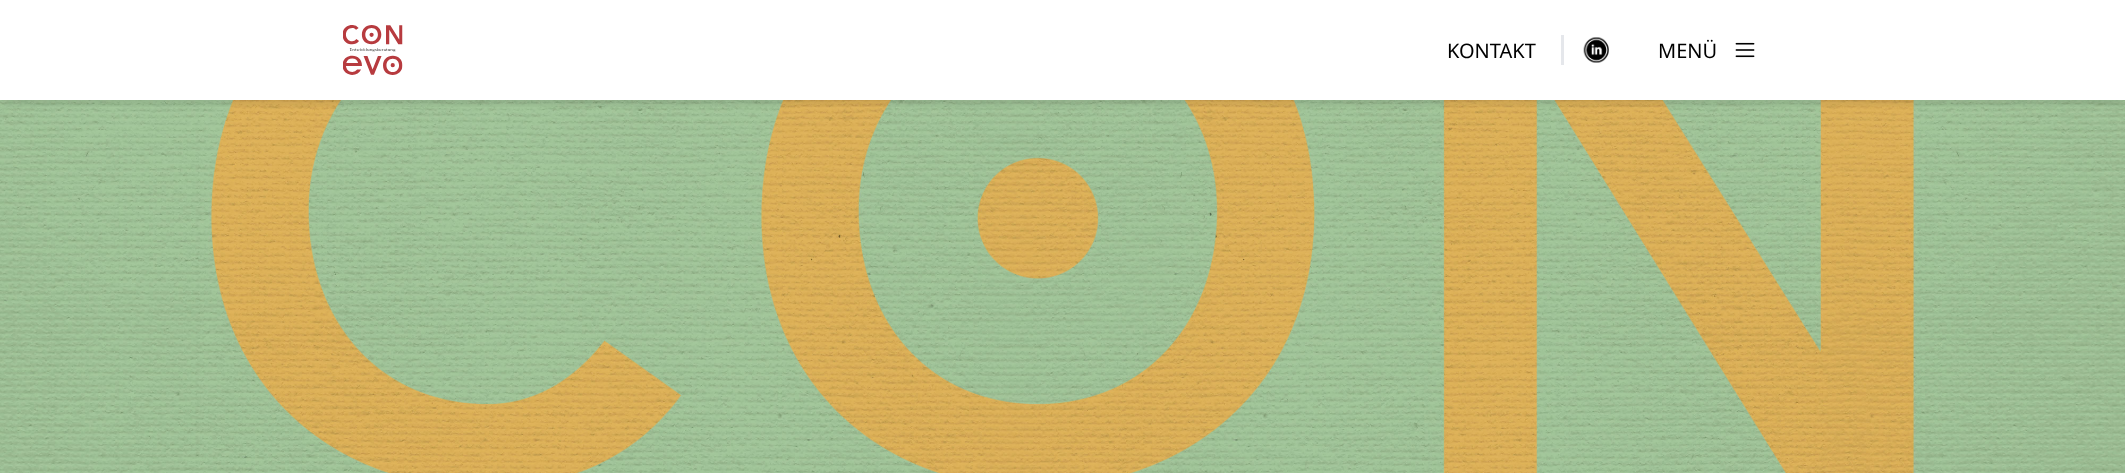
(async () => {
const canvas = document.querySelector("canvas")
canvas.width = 2125
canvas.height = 473
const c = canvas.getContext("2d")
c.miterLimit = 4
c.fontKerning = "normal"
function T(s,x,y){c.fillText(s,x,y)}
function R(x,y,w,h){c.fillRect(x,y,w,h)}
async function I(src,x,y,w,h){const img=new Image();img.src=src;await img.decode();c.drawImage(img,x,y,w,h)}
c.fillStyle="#fff"
R(0,0,2125,473)
await I("4.png",0,100,2125,373)
c.save()
c.beginPath()
c.rect(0,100,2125,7)
c.clip()
c.fillStyle="#0000001a"
c.filter="blur(4px)"
c.beginPath()
c.rect(1,6,2123,98)
c.fill()
c.filter="none"
c.restore()
await I("1.png",343,25,60,50)
c.fillStyle="#e5e7eb"
R(1561,35,3,30)
c.font="20px Noto Sans"
c.fillStyle="#000"
T("KONTAKT",1447,58)
await I("2.png",1583,37,26,26)
T("MENÜ",1658,58)
await I("3.png",1735,42,20,16)
})()
